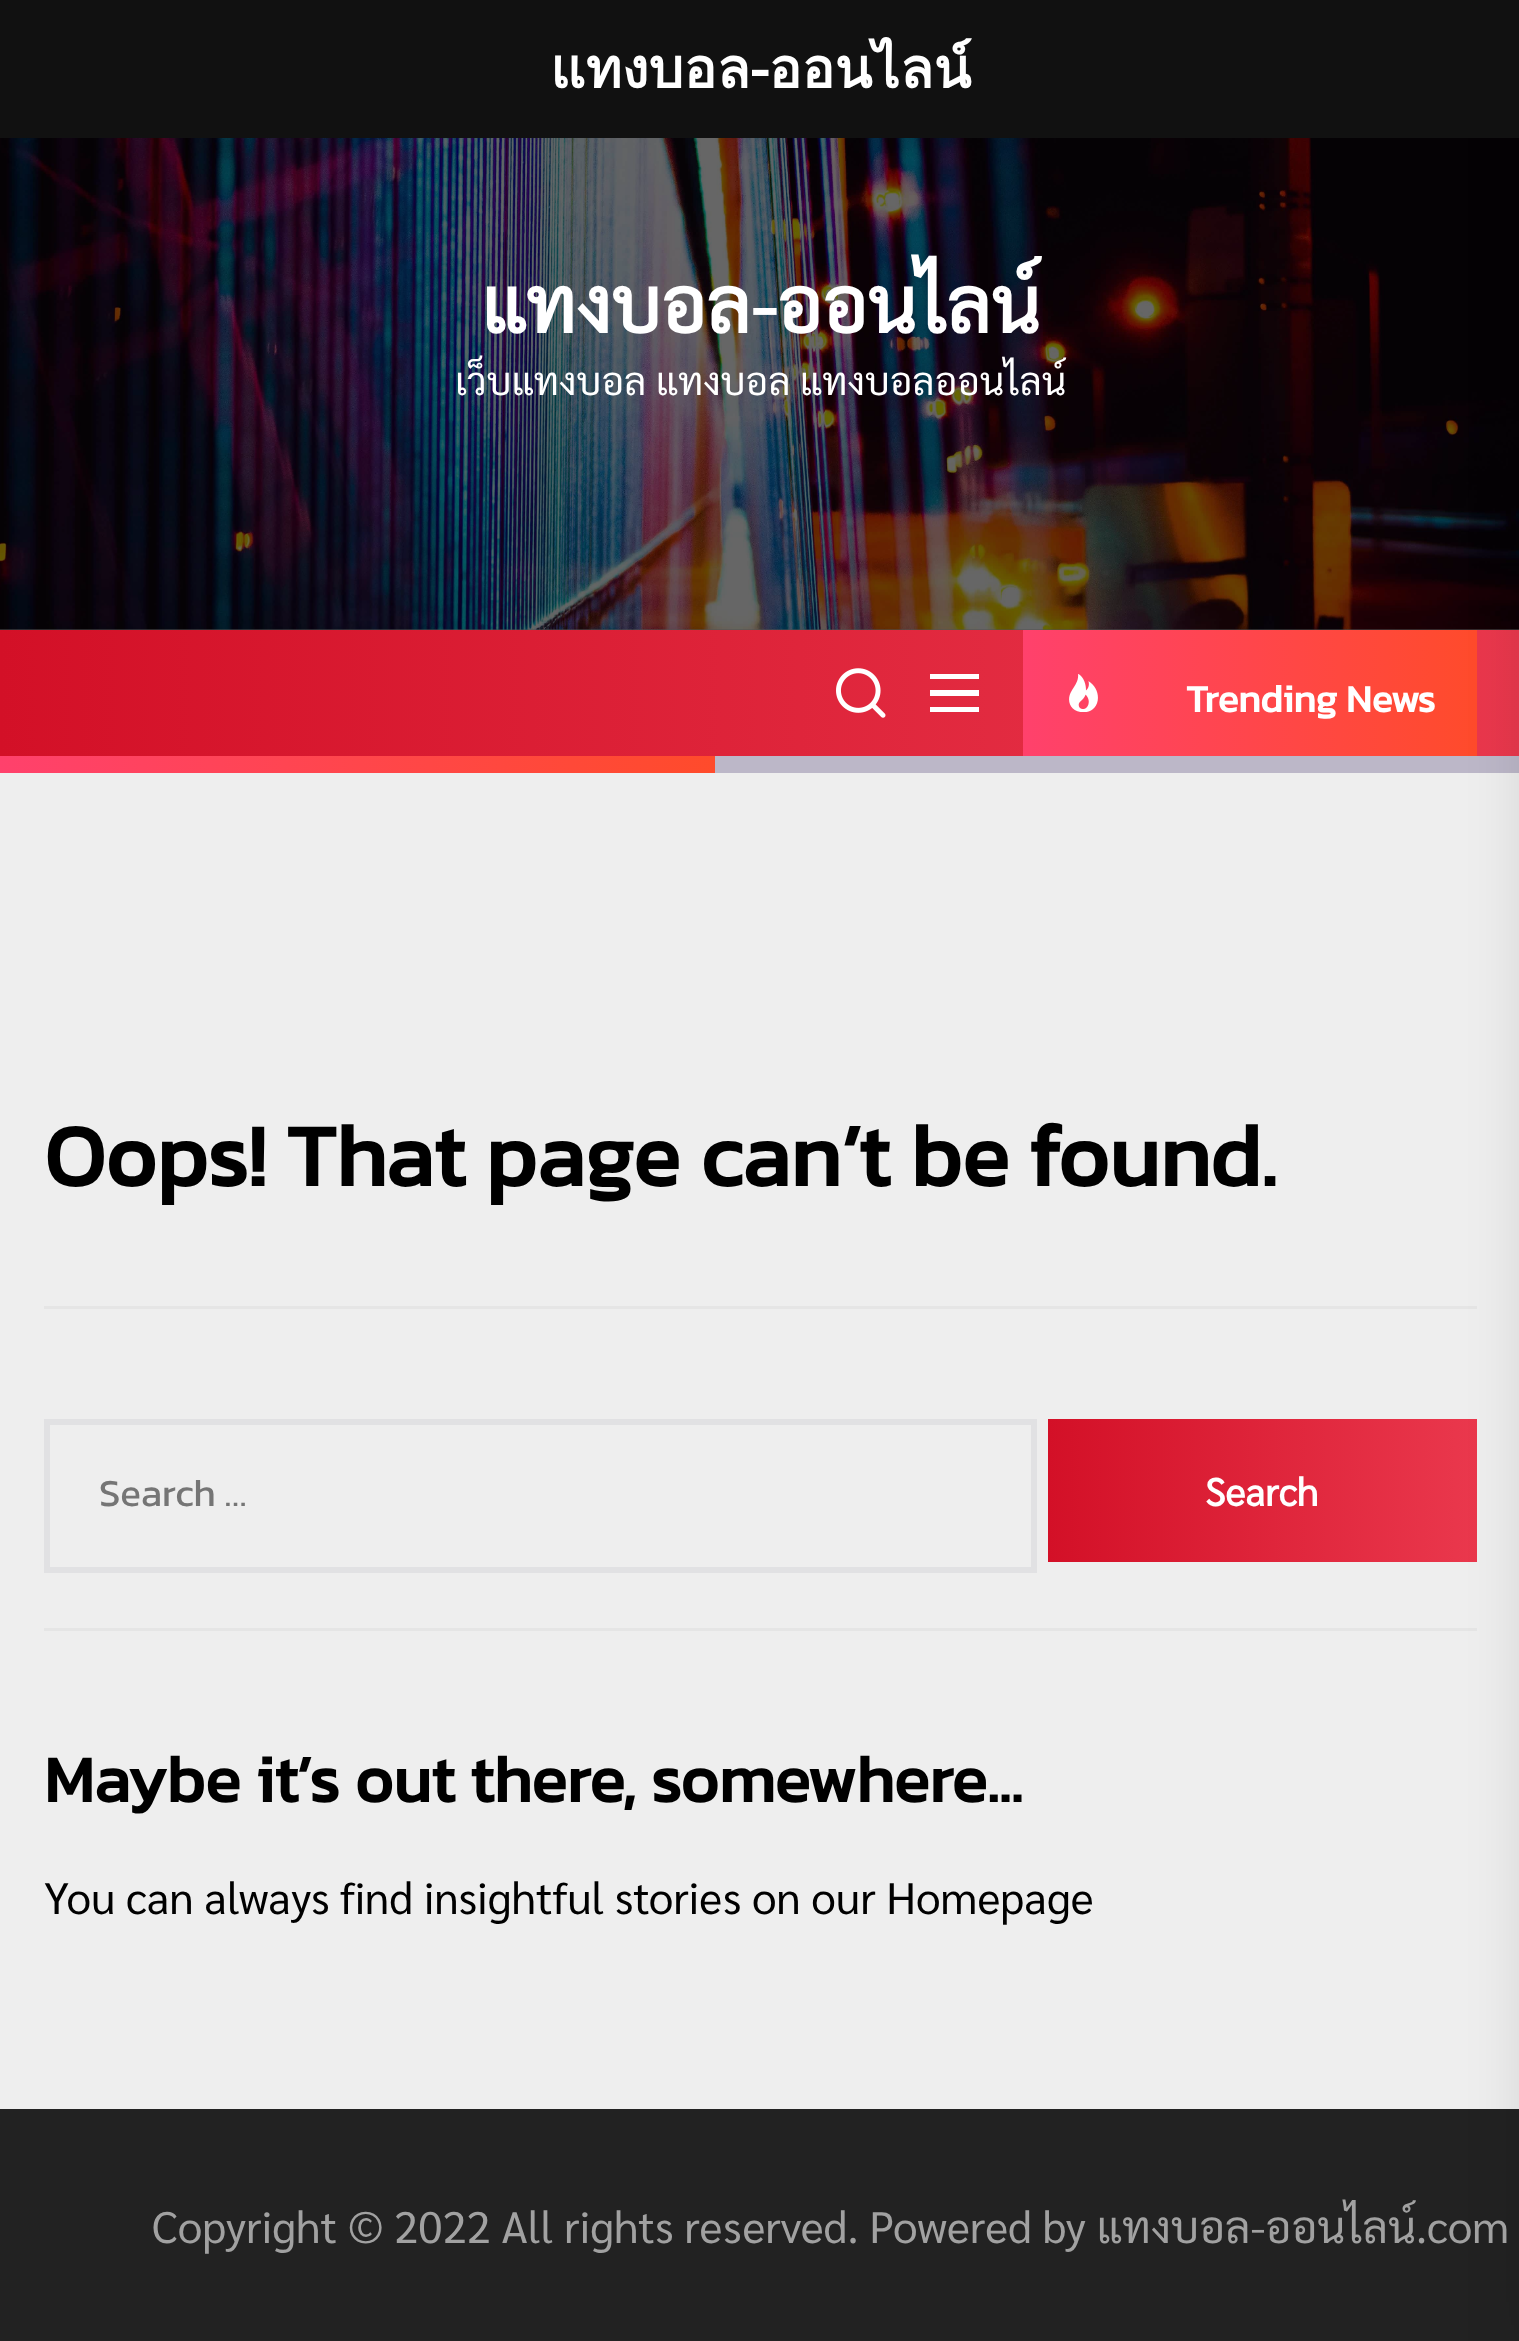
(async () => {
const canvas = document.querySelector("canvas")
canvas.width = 1519
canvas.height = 2341
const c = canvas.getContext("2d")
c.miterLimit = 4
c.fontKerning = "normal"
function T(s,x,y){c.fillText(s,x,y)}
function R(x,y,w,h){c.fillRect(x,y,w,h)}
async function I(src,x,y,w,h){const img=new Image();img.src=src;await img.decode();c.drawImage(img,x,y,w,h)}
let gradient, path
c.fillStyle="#eee"
R(0,0,1519,2341)
c.fillStyle="#525252"
R(0,629,1519,1)
await I("1.png",0,138,1519,492)
gradient = c.createLinearGradient(0,701,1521,701)
gradient.addColorStop(0,"#d31027")
gradient.addColorStop(1,"#ea384d")
c.fillStyle = gradient
R(0,630,1519,126)
gradient = c.createLinearGradient(1023,701,1477,701)
gradient.addColorStop(0,"#ff416c")
gradient.addColorStop(1,"#ff4b2b")
c.fillStyle = gradient
R(1023,630,454,126)
c.fillStyle="#bcb7c8"
R(715,756,804,17)
c.fillStyle="#e5e5e5"
R(44,1306,1433,3)
R(44,1628,1433,3)
gradient = c.createLinearGradient(1048,1491,1477,1491)
gradient.addColorStop(0,"#d31027")
gradient.addColorStop(1,"#ea384d")
c.fillStyle = gradient
R(1048,1419,429,143)
c.fillStyle="#222"
R(0,2109,1519,232)
c.fillStyle="#0000001a"
c.filter="blur(27.5px)"
c.beginPath()
c.rect(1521,0,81,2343)
c.fill()
c.filter="none"
c.fillStyle="#111"
R(0,0,1519,138)
c.font="bold 55px Loma"
c.fillStyle="#fff"
T("แทงบอล-ออนไลน์",550,88)
c.font="bold 77px Sarabun"
T("แทงบอล-ออนไลน์",481,333)
c.font="38.5px Sarabun"
T("เว็บแทงบอล แทงบอล แทงบอลออนไลน์",455,395)
await I("2.png",836,668,50,50)
path = new Path2D("M930 674v5h49v-5zm0 22h49v-6h-49zm0 16h49v-5h-49z")
c.fill(path)
await I("3.png",1069,674,29,38)
c.font="bold 38.5px Kanit"
T("Trending News",1186,712)
gradient = c.createLinearGradient(0,765,715,765)
gradient.addColorStop(0,"#ff416c")
gradient.addColorStop(1,"#ff4b2b")
c.fillStyle = gradient
R(0,756,715,17)
c.font="bold 88px Kanit"
c.fillStyle="#000"
T("Oops! That page can’t be found.",44,1186)
c.strokeStyle="#e1e1e3"
c.lineWidth=6
c.strokeRect(47,1422,987,148)
c.font="38.5px Kanit"
c.fillStyle="#757575"
T("Search …",99,1506)
c.font="bold 38.5px Sarabun"
c.fillStyle="#fff"
T("Search",1205,1506)
c.font="bold 66px Kanit"
c.fillStyle="#000"
T("Maybe it’s out there, somewhere...",44,1802)
c.font="44px Sarabun"
T("You can always find insightful stories on our Homepage",44,1914)
c.fillStyle="#a1a1a1"
T("Copyright © 2022 All rights reserved. Powered by แทงบอล-ออนไลน์.com",152,2243)
})()
